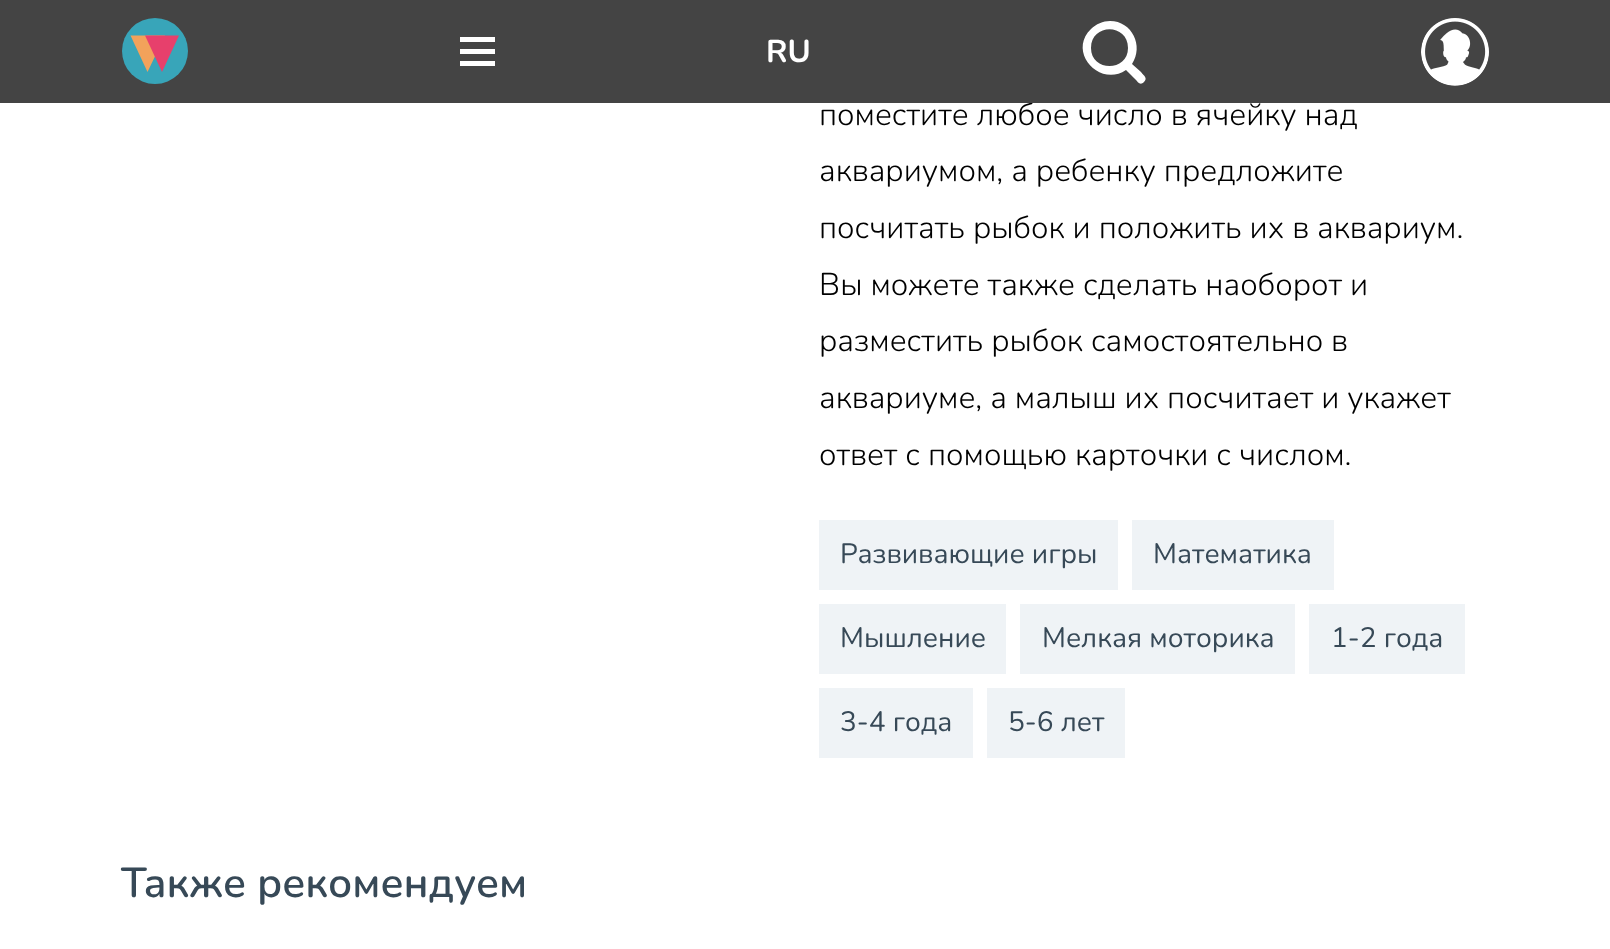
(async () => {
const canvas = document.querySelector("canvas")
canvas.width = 1610
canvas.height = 949
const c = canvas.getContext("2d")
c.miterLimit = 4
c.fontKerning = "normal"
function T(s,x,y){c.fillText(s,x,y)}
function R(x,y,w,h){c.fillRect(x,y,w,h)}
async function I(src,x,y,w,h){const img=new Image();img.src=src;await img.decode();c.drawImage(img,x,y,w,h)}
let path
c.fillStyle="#fff"
R(0,0,1610,949)
c.font="300 31.5px Nunito"
c.fillStyle="#000"
T("поместите любое число в ячейку над",819,125)
c.fillStyle="#444"
R(0,0,1610,103)
c.fillStyle="#38a5b9"
c.beginPath()
c.arc(155,51,33,0,7)
c.fill()
c.fillStyle="#f2a25b"
path = new Path2D("M147.5 72l-17-36.5h34.5z")
c.fill(path)
c.fillStyle="#e7406c"
path = new Path2D("M162 72l-17-36.5h34z")
c.fill(path)
c.fillStyle="#fff"
R(460,61,35,5)
R(460,49,35,5)
R(460,37,35,5)
c.font="bold 31.5px Nunito"
T("RU",766,62)
path = new Path2D("M1110 21c-7 0-14 3-19 8c-24 23 9 59 35 41l9 9c3 3 5 7 9 3c4-4 0-6-3-10l-9-8c12-18 0-43-22-43zm-19 27c0-25 37-25 37 0c0 24-37 24-37 0z")
c.fill(path,"evenodd")
await I("1.png",1421,18,68,68)
c.font="300 31.5px Nunito"
c.fillStyle="#000"
T("аквариумом, а ребенку предложите",819,181)
T("посчитать рыбок и положить их в аквариум.",819,238)
T("Вы можете также сделать наоборот и",819,295)
T("разместить рыбок самостоятельно в",819,351)
T("аквариуме, а малыш их посчитает и укажет",819,408)
T("ответ с помощью карточки с числом.",819,465)
c.fillStyle="#eff3f6"
R(819,520,299,70)
c.font="28px Nunito"
c.fillStyle="#374957"
T("Развивающие игры",840,563)
c.fillStyle="#eff3f6"
R(1132,520,202,70)
c.fillStyle="#374957"
T("Математика",1153,563)
c.fillStyle="#eff3f6"
R(819,604,187,70)
c.fillStyle="#374957"
T("Мышление",840,647)
c.fillStyle="#eff3f6"
R(1020,604,275,70)
c.fillStyle="#374957"
T("Мелкая моторика",1042,647)
c.fillStyle="#eff3f6"
R(1309,604,156,70)
c.fillStyle="#374957"
T("1-2 года",1331,647)
c.fillStyle="#eff3f6"
R(819,688,154,70)
c.fillStyle="#374957"
T("3-4 года",840,731)
c.fillStyle="#eff3f6"
R(987,688,138,70)
c.fillStyle="#374957"
T("5-6 лет",1008,731)
c.font="600 42px Nunito"
T("Также рекомендуем",121,897)
})()
